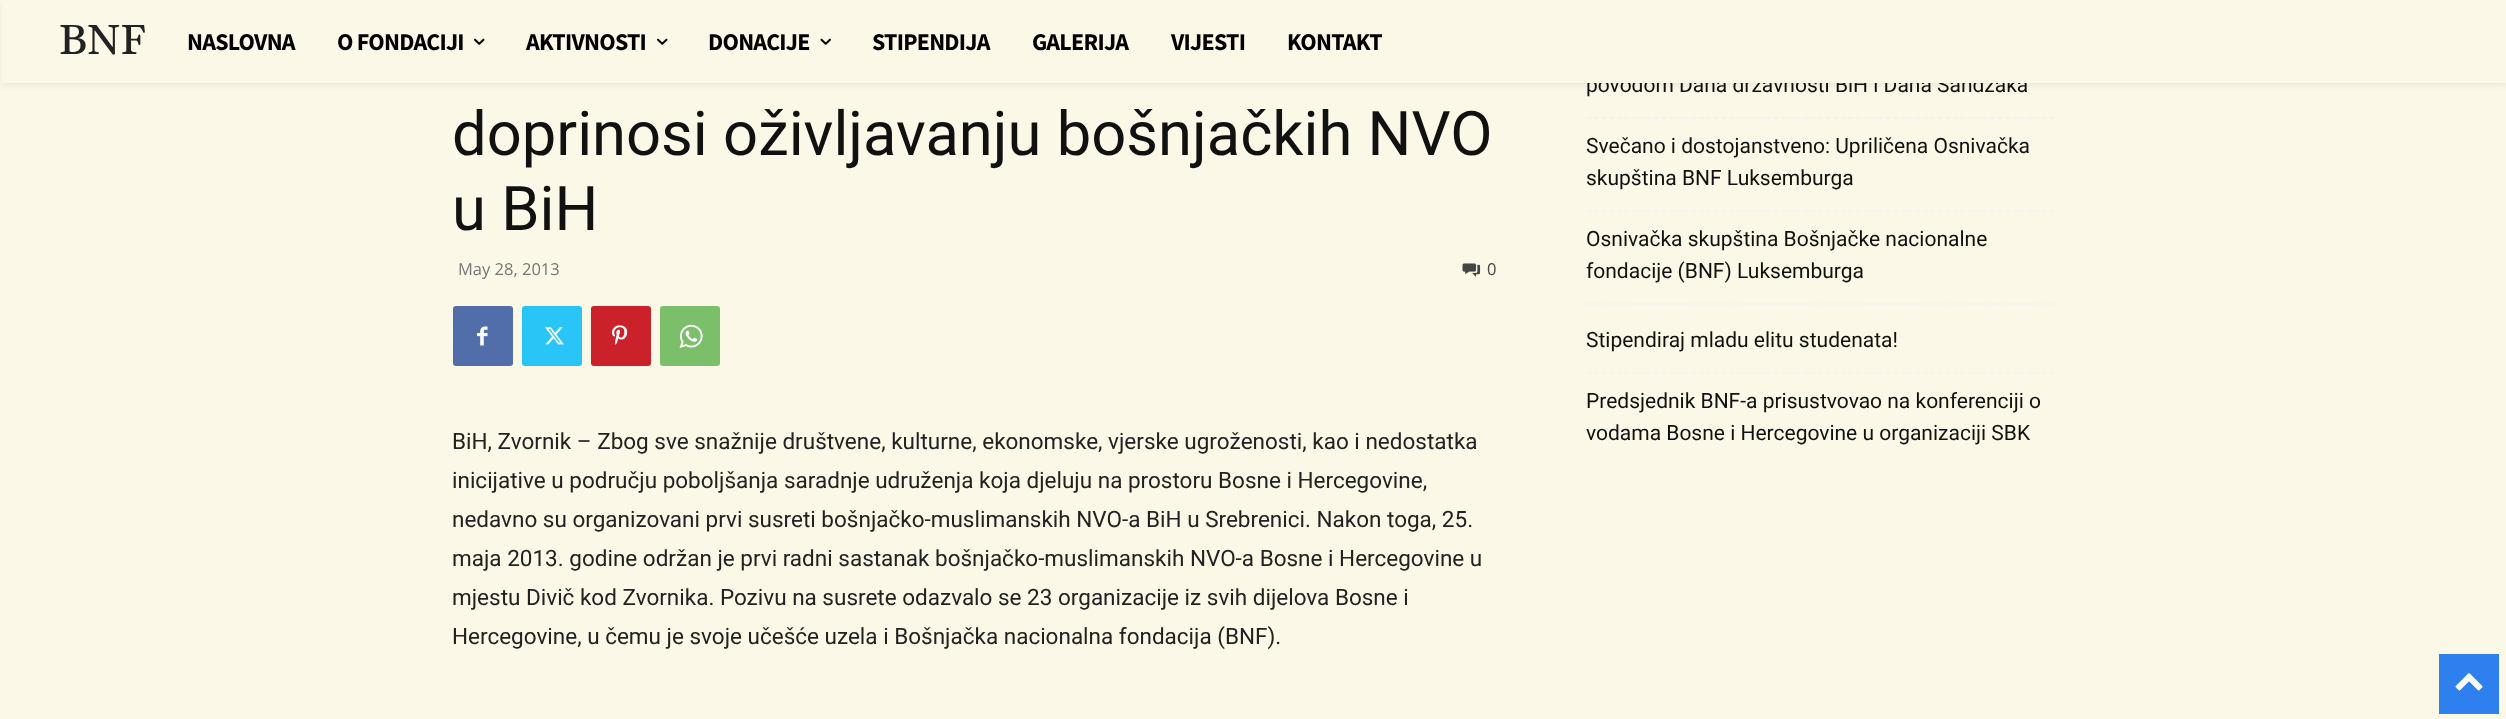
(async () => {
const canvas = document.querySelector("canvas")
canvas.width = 2506
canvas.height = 719
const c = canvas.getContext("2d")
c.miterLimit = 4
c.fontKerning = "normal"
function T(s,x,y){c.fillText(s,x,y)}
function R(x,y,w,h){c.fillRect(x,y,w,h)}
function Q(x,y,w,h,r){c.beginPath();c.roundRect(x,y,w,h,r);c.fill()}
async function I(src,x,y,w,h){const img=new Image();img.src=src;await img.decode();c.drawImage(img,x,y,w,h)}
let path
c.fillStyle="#fcf8e7"
R(0,0,2506,719)
c.font="21px Roboto"
c.fillStyle="#111"
T("povodom Dana državnosti BiH i Dana Sandžaka",1586,92)
c.fillStyle="#fcf8e7"
R(1587,76,440,7)
c.save()
path = new Path2D("M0 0h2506v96h-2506zm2 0h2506v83h-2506z")
c.clip(path,"evenodd")
c.fillStyle="#0000000f"
c.filter="blur(3px)"
c.beginPath()
c.rect(2,3,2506,83)
c.fill()
c.filter="none"
c.restore()
c.font="500 42px Gelasio"
c.fillStyle="#222"
T("BNF",59,54)
c.letterSpacing="-0.75px"
c.font="bold 24px Source Sans Pro"
c.fillStyle="#000"
T("NASLOVNA",187,50)
T("O FONDACIJI",337,50)
await I("1.png",474,38,11,7)
T("AKTIVNOSTI",526,50)
await I("1.png",657,38,11,7)
T("DONACIJE",708,50)
await I("2.png",820,38,11,7)
T("STIPENDIJA",872,50)
T("GALERIJA",1032,50)
T("VIJESTI",1171,50)
T("KONTAKT",1287,50)
c.letterSpacing="0px"
c.font="61.5px Roboto"
c.fillStyle="#111"
T("doprinosi oživljavanju bošnjačkih NVO",452,155)
T("u BiH",452,230)
c.font="16.5px Open Sans"
c.fillStyle="#767676"
T("May 28, 2013",458,275)
await I("3.png",1462,263,19,14)
c.fillStyle="#444"
T("0",1487,275)
c.fillStyle="#516eab"
Q(453,306,60,60,3)
await I("4.png",477,326,11,20)
c.fillStyle="#29c5f6"
Q(522,306,60,60,3)
await I("5.png",545,327,19,18)
c.fillStyle="#ca212a"
Q(591,306,60,60,3)
await I("6.png",612,325,16,20)
c.fillStyle="#7bbf6a"
Q(660,306,60,60,3)
await I("7.png",679,324,24,24)
c.font="22.5px Roboto"
c.fillStyle="#222"
T("BiH, Zvornik – Zbog sve snažnije društvene, kulturne, ekonomske, vjerske ugroženosti, kao i nedostatka",452,449)
T("inicijative u području poboljšanja saradnje udruženja koja djeluju na prostoru Bosne i Hercegovine,",452,488)
T("nedavno su organizovani prvi susreti bošnjačko-muslimanskih NVO-a BiH u Srebrenici. Nakon toga, 25.",452,527)
T("maja 2013. godine održan je prvi radni sastanak bošnjačko-muslimanskih NVO-a Bosne i Hercegovine u",452,566)
T("mjestu Divič kod Zvornika. Pozivu na susrete odazvalo se 23 organizacije iz svih dijelova Bosne i",452,605)
T("Hercegovine, u čemu je svoje učešće uzela i Bošnjačka nacionalna fondacija (BNF).",452,644)
path = new Path2D("M1587 118h468")
c.strokeStyle="#f1f1f1"
c.lineWidth=1.5
c.setLineDash([4.5,2.97])
c.stroke(path)
path = new Path2D("M1587 211h468")
c.stroke(path)
c.font="21px Roboto"
c.fillStyle="#111"
T("Svečano i dostojanstveno: Upriličena Osnivačka",1586,153)
T("skupština BNF Luksemburga",1586,185)
path = new Path2D("M1587 304h468")
c.stroke(path)
T("Osnivačka skupština Bošnjačke nacionalne",1586,246)
T("fondacije (BNF) Luksemburga",1586,278)
path = new Path2D("M1587 373h468")
c.stroke(path)
T("Stipendiraj mladu elitu studenata!",1586,347)
T("Predsjednik BNF-a prisustvovao na konferenciji o",1586,408)
T("vodama Bosne i Hercegovine u organizaciji SBK",1586,440)
c.fillStyle="#2d80ed"
R(2439,654,60,60)
await I("8.png",2455,673,28,18)
})()
